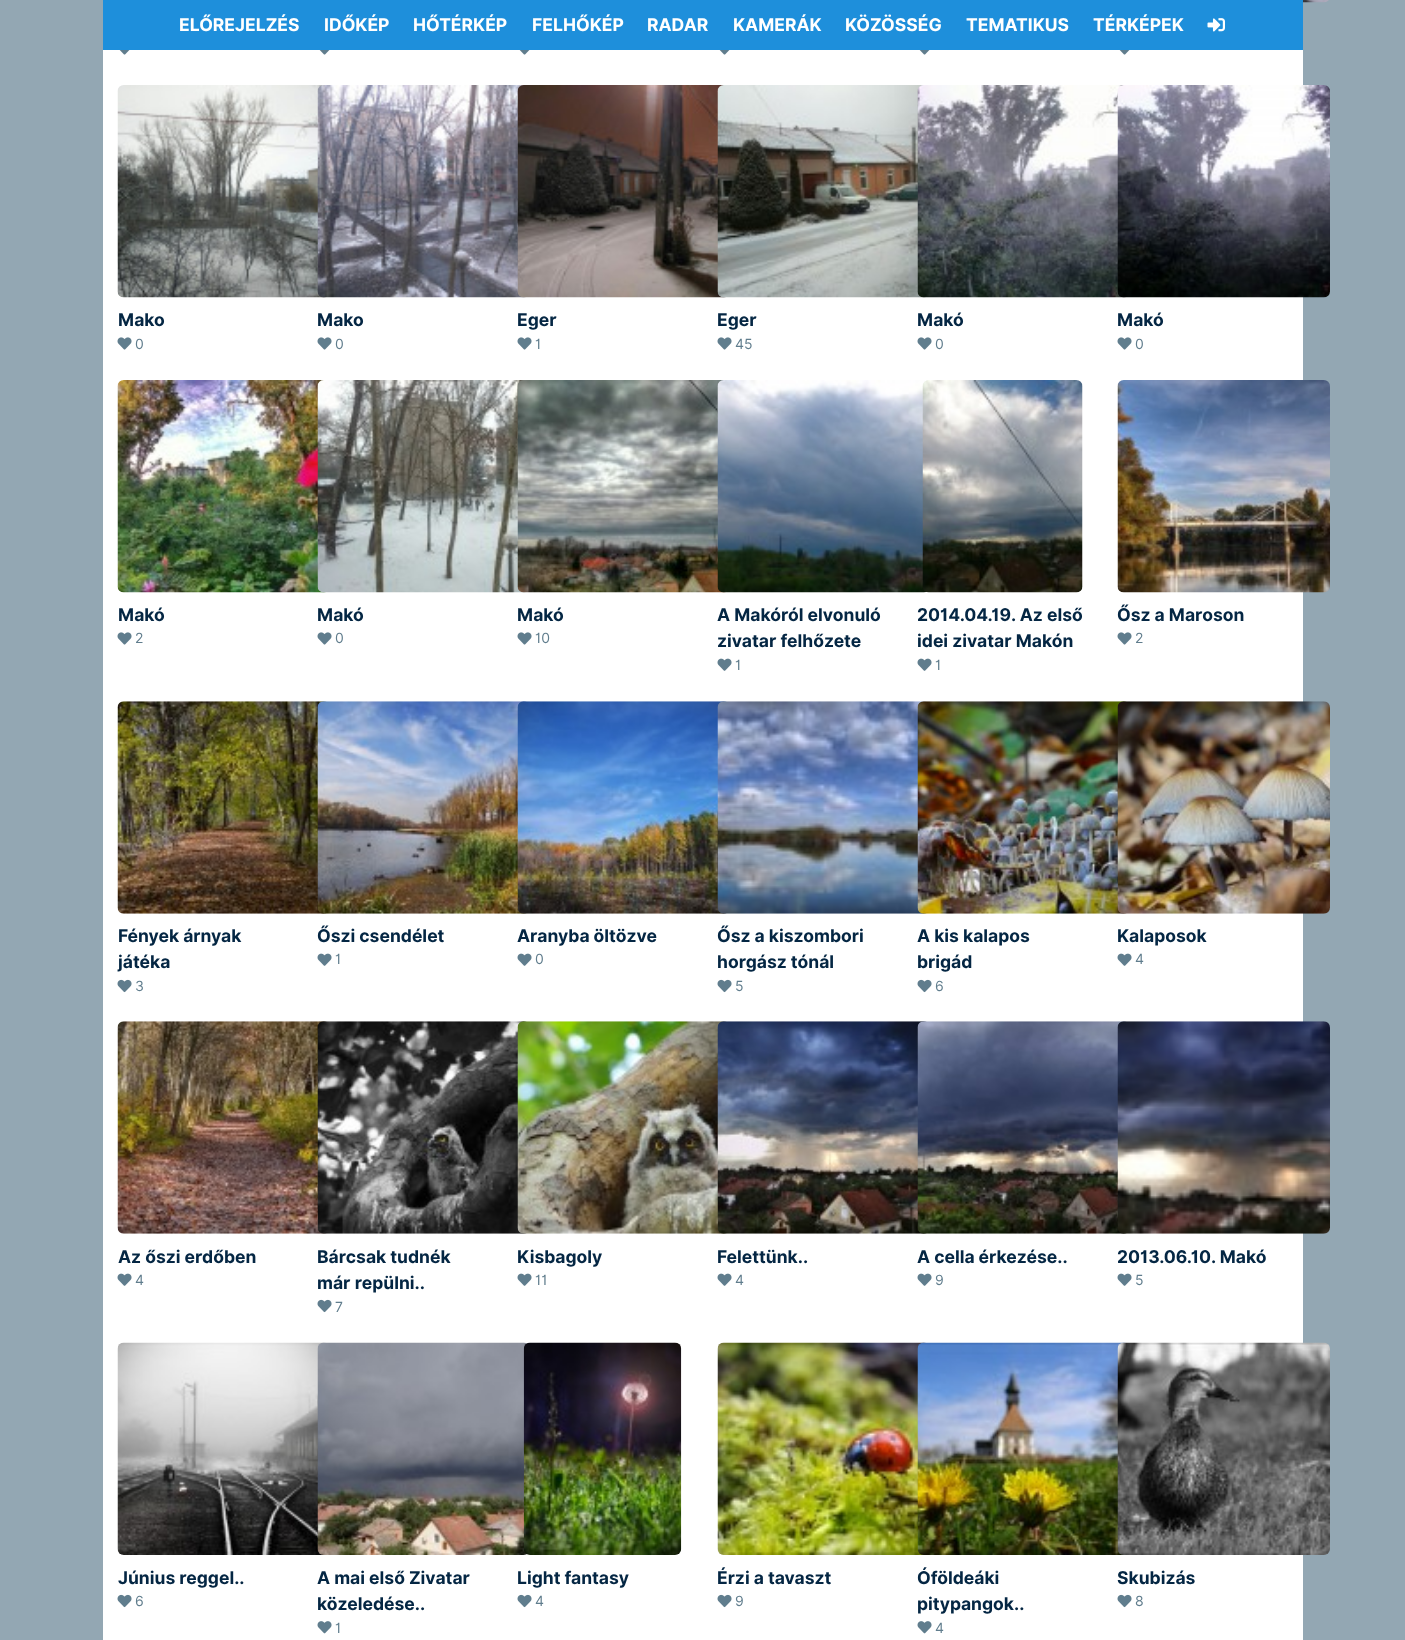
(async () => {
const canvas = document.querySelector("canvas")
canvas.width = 1405
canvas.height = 1640
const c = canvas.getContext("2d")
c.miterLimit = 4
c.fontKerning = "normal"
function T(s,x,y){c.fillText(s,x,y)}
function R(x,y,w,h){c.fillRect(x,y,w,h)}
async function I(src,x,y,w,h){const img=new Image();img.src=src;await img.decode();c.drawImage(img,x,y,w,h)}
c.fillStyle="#93a7b3"
R(0,0,1405,1640)
c.fillStyle="#1e8fdb"
R(103,0,1200,50)
c.font="bold 17.5px Inter"
c.fillStyle="#fff"
T("ELŐREJELZÉS",179,31)
T("IDŐKÉP",324,31)
T("HŐTÉRKÉP",413,31)
T("FELHŐKÉP",532,31)
T("RADAR",647,31)
T("KAMERÁK",733,31)
T("KÖZÖSSÉG",845,31)
T("TEMATIKUS",966,31)
T("TÉRKÉPEK",1093,31)
await I("1.png",1207,18,18,14)
R(103,50,1200,1590)
await I("2.png",119,50,11,5)
await I("2.png",319,50,11,5)
await I("2.png",519,50,11,5)
await I("2.png",719,50,11,5)
await I("2.png",919,50,11,5)
await I("3.png",1303,0,26,3)
await I("2.png",1119,50,11,5)
await I("4.png",117,85,209,213)
c.fillStyle="#042643"
T("Mako",118,326)
await I("5.png",117,337,15,13)
c.font="14px Inter"
c.fillStyle="#607d8d"
T("0",135,349)
await I("6.png",317,85,209,213)
c.font="bold 17.5px Inter"
c.fillStyle="#042643"
T("Mako",317,326)
await I("5.png",317,337,15,13)
c.font="14px Inter"
c.fillStyle="#607d8d"
T("0",335,349)
await I("7.png",517,85,209,213)
c.font="bold 17.5px Inter"
c.fillStyle="#042643"
T("Eger",517,326)
await I("5.png",517,337,15,13)
c.font="14px Inter"
c.fillStyle="#607d8d"
T("1",535,349)
await I("8.png",717,85,209,213)
c.font="bold 17.5px Inter"
c.fillStyle="#042643"
T("Eger",717,326)
await I("5.png",717,337,15,13)
c.font="14px Inter"
c.fillStyle="#607d8d"
T("45",735,349)
await I("9.png",917,85,209,213)
c.font="bold 17.5px Inter"
c.fillStyle="#042643"
T("Makó",917,326)
await I("5.png",917,337,15,13)
c.font="14px Inter"
c.fillStyle="#607d8d"
T("0",935,349)
await I("10.png",1117,85,213,213)
c.font="bold 17.5px Inter"
c.fillStyle="#042643"
T("Makó",1117,326)
await I("5.png",1117,337,15,13)
c.font="14px Inter"
c.fillStyle="#607d8d"
T("0",1135,349)
await I("11.png",117,380,209,213)
c.font="bold 17.5px Inter"
c.fillStyle="#042643"
T("Makó",118,621)
await I("5.png",117,632,15,13)
c.font="14px Inter"
c.fillStyle="#607d8d"
T("2",135,643)
await I("12.png",317,380,209,213)
c.font="bold 17.5px Inter"
c.fillStyle="#042643"
T("Makó",317,621)
await I("5.png",317,632,15,13)
c.font="14px Inter"
c.fillStyle="#607d8d"
T("0",335,643)
await I("13.png",517,380,209,213)
c.font="bold 17.5px Inter"
c.fillStyle="#042643"
T("Makó",517,621)
await I("5.png",517,632,15,13)
c.font="14px Inter"
c.fillStyle="#607d8d"
T("10",535,643)
await I("14.png",717,380,210,213)
c.font="bold 17.5px Inter"
c.fillStyle="#042643"
T("A Makóról elvonuló",717,621)
T("zivatar felhőzete",717,647)
await I("15.png",717,658,15,13)
c.font="14px Inter"
c.fillStyle="#607d8d"
T("1",735,670)
await I("16.png",922,380,161,213)
c.font="bold 17.5px Inter"
c.fillStyle="#042643"
T("2014.04.19. Az első",917,621)
T("idei zivatar Makón",917,647)
await I("15.png",917,658,15,13)
c.font="14px Inter"
c.fillStyle="#607d8d"
T("1",935,670)
await I("17.png",1117,380,213,213)
c.font="bold 17.5px Inter"
c.fillStyle="#042643"
T("Ősz a Maroson",1117,621)
await I("5.png",1117,632,15,13)
c.font="14px Inter"
c.fillStyle="#607d8d"
T("2",1135,643)
await I("18.png",117,701,210,213)
c.font="bold 17.5px Inter"
c.fillStyle="#042643"
T("Fények árnyak",118,942)
T("játéka",118,968)
await I("19.png",117,979,15,14)
c.font="14px Inter"
c.fillStyle="#607d8d"
T("3",135,991)
await I("20.png",317,701,210,213)
c.font="bold 17.5px Inter"
c.fillStyle="#042643"
T("Őszi csendélet",317,942)
await I("15.png",317,953,15,13)
c.font="14px Inter"
c.fillStyle="#607d8d"
T("1",335,964)
await I("21.png",517,701,210,213)
c.font="bold 17.5px Inter"
c.fillStyle="#042643"
T("Aranyba öltözve",517,942)
await I("15.png",517,953,15,13)
c.font="14px Inter"
c.fillStyle="#607d8d"
T("0",535,964)
await I("22.png",717,701,210,213)
c.font="bold 17.5px Inter"
c.fillStyle="#042643"
T("Ősz a kiszombori",717,942)
T("horgász tónál",717,968)
await I("19.png",717,979,15,14)
c.font="14px Inter"
c.fillStyle="#607d8d"
T("5",735,991)
await I("23.png",917,701,210,213)
c.font="bold 17.5px Inter"
c.fillStyle="#042643"
T("A kis kalapos",917,942)
T("brigád",917,968)
await I("19.png",917,979,15,14)
c.font="14px Inter"
c.fillStyle="#607d8d"
T("6",935,991)
await I("24.png",1117,701,213,213)
c.font="bold 17.5px Inter"
c.fillStyle="#042643"
T("Kalaposok",1117,942)
await I("15.png",1117,953,15,13)
c.font="14px Inter"
c.fillStyle="#607d8d"
T("4",1135,964)
await I("25.png",117,1021,210,213)
c.font="bold 17.5px Inter"
c.fillStyle="#042643"
T("Az őszi erdőben",118,1263)
await I("15.png",117,1273,15,13)
c.font="14px Inter"
c.fillStyle="#607d8d"
T("4",135,1285)
await I("26.png",317,1021,210,213)
c.font="bold 17.5px Inter"
c.fillStyle="#042643"
T("Bárcsak tudnék",317,1263)
T("már repülni..",317,1289)
await I("19.png",317,1299,15,14)
c.font="14px Inter"
c.fillStyle="#607d8d"
T("7",335,1312)
await I("27.png",517,1021,210,213)
c.font="bold 17.5px Inter"
c.fillStyle="#042643"
T("Kisbagoly",517,1263)
await I("15.png",517,1273,15,13)
c.font="14px Inter"
c.fillStyle="#607d8d"
T("11",535,1285)
await I("28.png",717,1021,210,213)
c.font="bold 17.5px Inter"
c.fillStyle="#042643"
T("Felettünk..",717,1263)
await I("15.png",717,1273,15,13)
c.font="14px Inter"
c.fillStyle="#607d8d"
T("4",735,1285)
await I("29.png",917,1021,210,213)
c.font="bold 17.5px Inter"
c.fillStyle="#042643"
T("A cella érkezése..",917,1263)
await I("15.png",917,1273,15,13)
c.font="14px Inter"
c.fillStyle="#607d8d"
T("9",935,1285)
await I("30.png",1117,1021,213,213)
c.font="bold 17.5px Inter"
c.fillStyle="#042643"
T("2013.06.10. Makó",1117,1263)
await I("15.png",1117,1273,15,13)
c.font="14px Inter"
c.fillStyle="#607d8d"
T("5",1135,1285)
await I("31.png",117,1342,209,213)
c.font="bold 17.5px Inter"
c.fillStyle="#042643"
T("Június reggel..",118,1584)
await I("19.png",117,1594,15,14)
c.font="14px Inter"
c.fillStyle="#607d8d"
T("6",135,1606)
await I("32.png",317,1342,211,213)
c.font="bold 17.5px Inter"
c.fillStyle="#042643"
T("A mai első Zivatar",317,1584)
T("közeledése..",317,1610)
await I("33.png",317,1621,15,13)
c.font="14px Inter"
c.fillStyle="#607d8d"
T("1",335,1633)
await I("34.png",523,1342,159,213)
c.font="bold 17.5px Inter"
c.fillStyle="#042643"
T("Light fantasy",517,1584)
await I("19.png",517,1594,15,14)
c.font="14px Inter"
c.fillStyle="#607d8d"
T("4",535,1606)
await I("35.png",717,1342,209,213)
c.font="bold 17.5px Inter"
c.fillStyle="#042643"
T("Érzi a tavaszt",717,1584)
await I("19.png",717,1594,15,14)
c.font="14px Inter"
c.fillStyle="#607d8d"
T("9",735,1606)
await I("36.png",917,1342,209,213)
c.font="bold 17.5px Inter"
c.fillStyle="#042643"
T("Óföldeáki",917,1584)
T("pitypangok..",917,1610)
await I("33.png",917,1621,15,13)
c.font="14px Inter"
c.fillStyle="#607d8d"
T("4",935,1633)
await I("37.png",1117,1342,213,213)
c.font="bold 17.5px Inter"
c.fillStyle="#042643"
T("Skubizás",1117,1584)
await I("19.png",1117,1594,15,14)
c.font="14px Inter"
c.fillStyle="#607d8d"
T("8",1135,1606)
})()
